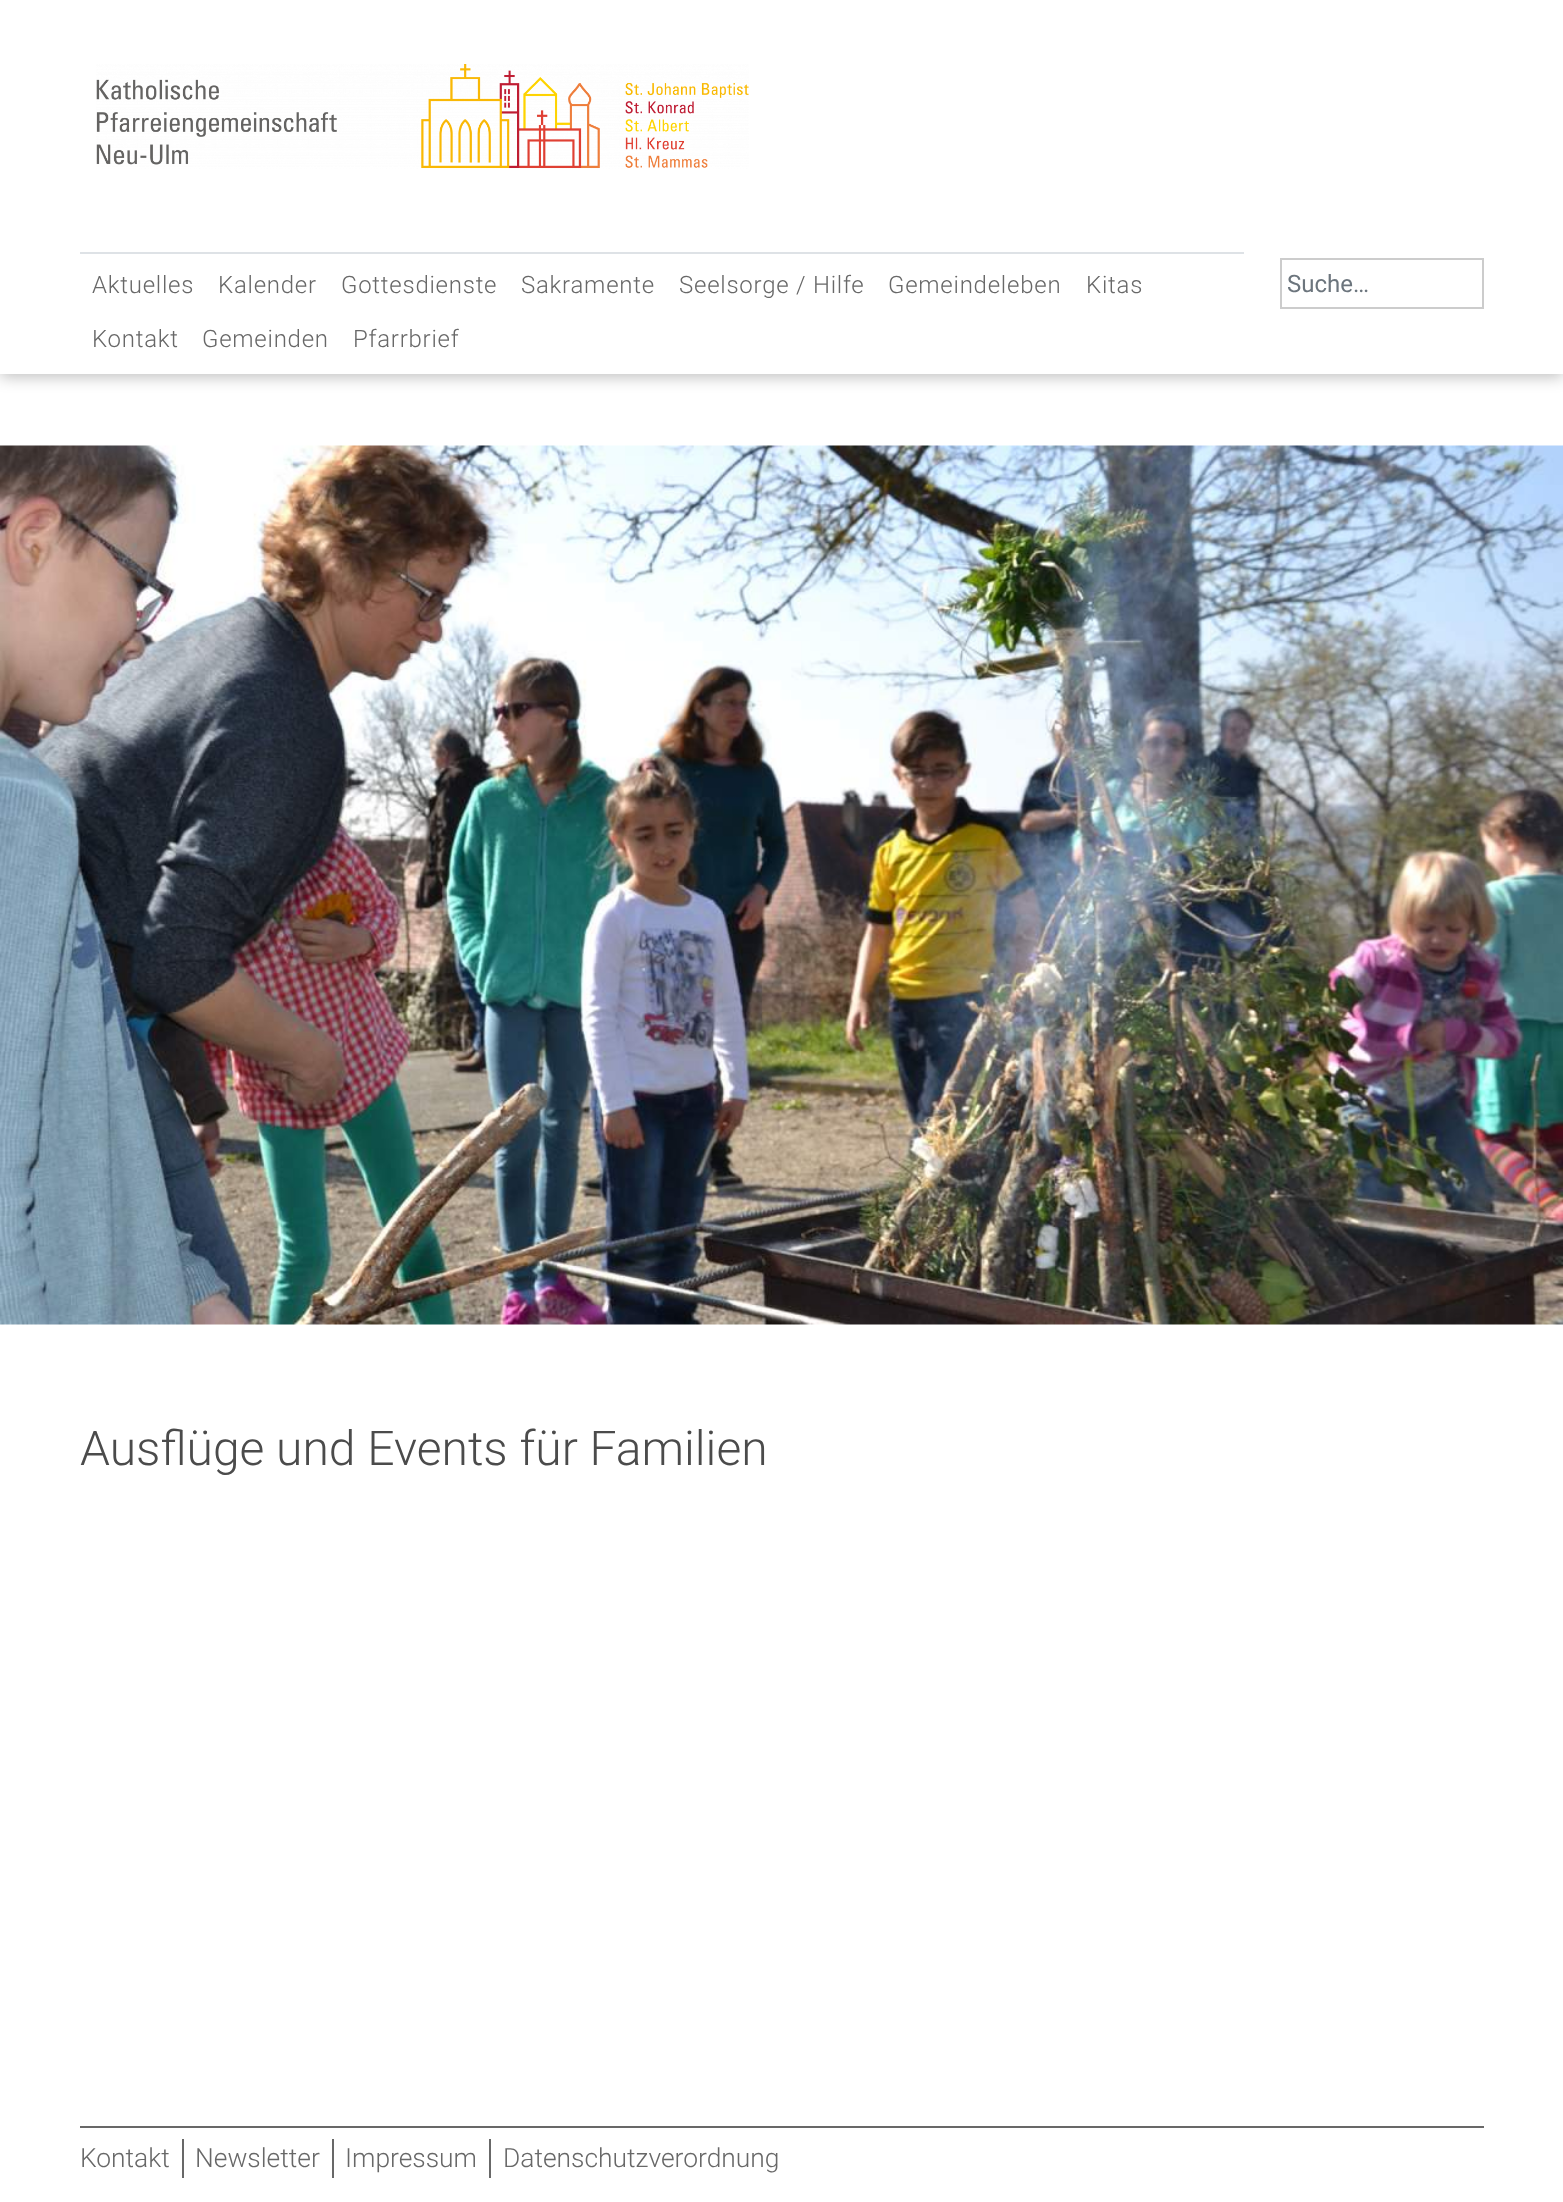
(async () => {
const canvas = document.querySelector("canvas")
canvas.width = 1563
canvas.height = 2202
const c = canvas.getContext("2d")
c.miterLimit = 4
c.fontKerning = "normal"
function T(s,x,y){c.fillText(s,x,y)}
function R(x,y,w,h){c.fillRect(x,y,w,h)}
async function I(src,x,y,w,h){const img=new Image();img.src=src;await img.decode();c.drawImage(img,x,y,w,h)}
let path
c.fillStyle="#fff"
R(0,0,1563,2202)
c.save()
path = new Path2D("M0 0h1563v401h-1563zm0 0h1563v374h-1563z")
c.clip(path,"evenodd")
c.fillStyle="#00000040"
c.filter="blur(7.5px)"
c.beginPath()
c.rect(0,3,1563,374)
c.fill()
c.filter="none"
c.restore()
c.fillStyle="#fffffffc"
R(0,373,1563,1)
await I("1.png",96,64,653,105)
c.fillStyle="#dee2e6"
R(80,252,1164,2)
c.letterSpacing="0.75px"
c.font="300 24px Roboto"
c.fillStyle="#686868"
T("Aktuelles",92,293)
T("Kalender",218,293)
T("Gottesdienste",341,293)
T("Sakramente",521,293)
T("Seelsorge / Hilfe",679,293)
T("Gemeindeleben",888,293)
T("Kitas",1086,293)
T("Kontakt",92,347)
T("Gemeinden",202,347)
T("Pfarrbrief",353,347)
c.strokeStyle="#ccc"
c.lineWidth=2
c.strokeRect(1281,259,202,49)
c.letterSpacing="0px"
c.font="24px Roboto"
c.fillStyle="#6c757d"
T("Suche…",1287,292)
await I("2.png",0,445,1563,880)
c.font="300 48px Roboto"
c.fillStyle="#4b4b4b"
T("Ausflüge und Events für Familien",80,1465)
c.fillStyle="#686868"
R(80,2126,1404,2)
c.font="300 26.4px Roboto"
T("Kontakt",80,2167)
R(182,2139,2,39)
T("Newsletter",195,2167)
R(332,2139,2,39)
T("Impressum",345,2167)
R(489,2139,2,39)
T("Datenschutzverordnung",503,2167)
})()
